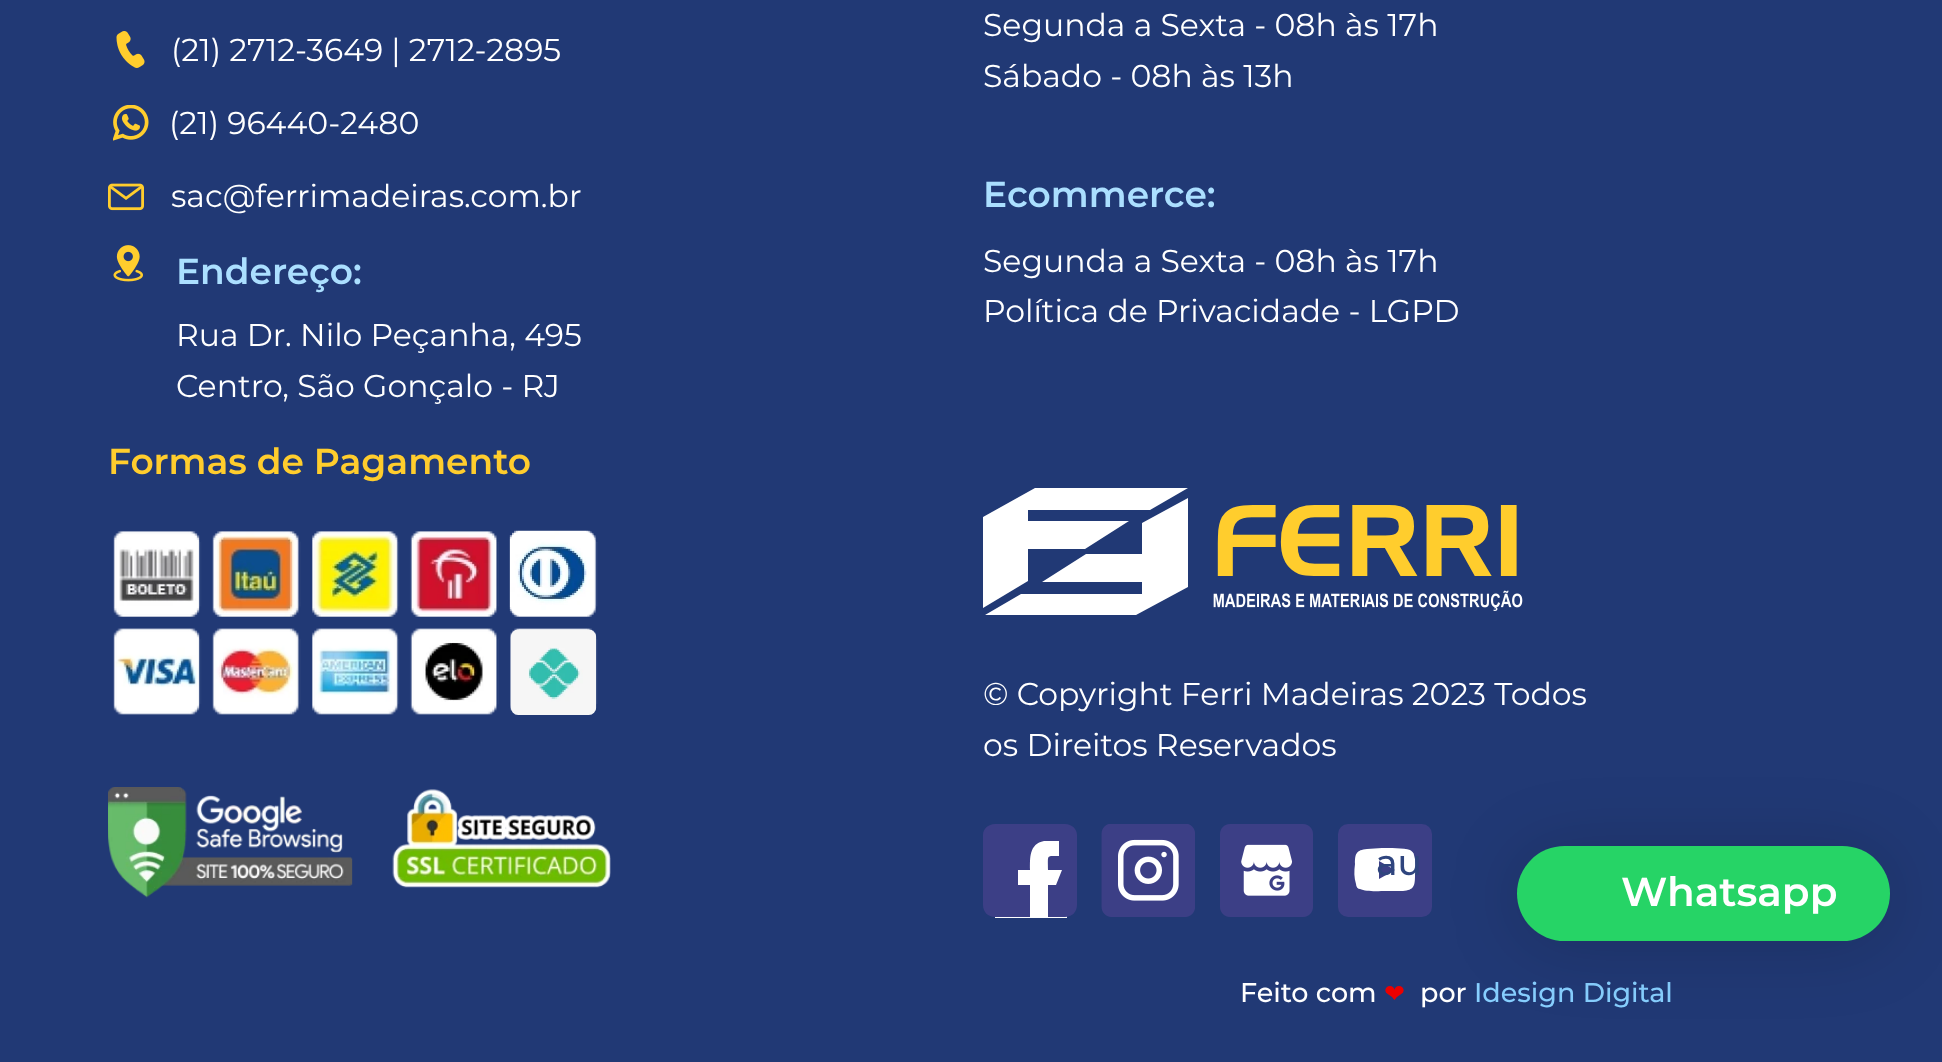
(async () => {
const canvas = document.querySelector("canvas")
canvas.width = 1942
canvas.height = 1062
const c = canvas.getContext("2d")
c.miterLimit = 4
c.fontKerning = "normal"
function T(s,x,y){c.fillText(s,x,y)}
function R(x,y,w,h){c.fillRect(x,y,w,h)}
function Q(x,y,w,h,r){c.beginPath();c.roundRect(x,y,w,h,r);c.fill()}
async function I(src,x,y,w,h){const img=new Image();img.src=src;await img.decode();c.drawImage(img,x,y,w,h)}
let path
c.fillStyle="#213975"
R(0,0,1942,1062)
await I("1.png",116,31,29,37)
c.font="31.5px Montserrat"
c.fillStyle="#fff"
T("(21) 2712-3649 | 2712-2895",171,61)
await I("2.png",113,105,36,36)
T("(21) 96440-2480",169,134)
await I("3.png",108,183,36,28)
T("sac@ferrimadeiras.com.br",171,207)
await I("4.png",113,245,30,37)
c.font="600 36px Montserrat"
c.fillStyle="#abdfff"
T("Endereço:",176,284)
c.font="31.5px Montserrat"
c.fillStyle="#fff"
T("Rua Dr. Nilo Peçanha, 495",176,346)
T("Centro, São Gonçalo - RJ",176,397)
T("Segunda a Sexta - 08h às 17h",983,36)
T("Sábado - 08h às 13h",983,87)
c.font="600 36px Montserrat"
c.fillStyle="#abdfff"
T("Ecommerce:",983,207)
c.font="31.5px Montserrat"
c.fillStyle="#fff"
T("Segunda a Sexta - 08h às 17h",983,272)
T("Política de Privacidade - LGPD",983,322)
c.font="600 36px Montserrat"
c.fillStyle="#ffcd2d"
T("Formas de Pagamento",108,474)
await I("6.png",113,531,485,184)
await I("5.png",509,530,87,85)
await I("7.png",510,629,87,86)
await I("8.png",108,787,245,111)
await I("9.png",392,789,219,99)
c.fillStyle="#fff"
path = new Path2D("M985 615h151l52-28v-89l-46 25v31h-56l-44 28h100v12h-121z")
c.fill(path,"evenodd")
path = new Path2D("M1188 488h-153l-52 29v91l45-27v-32h57l44-28h-101v-11h122z")
c.fill(path,"evenodd")
c.font="99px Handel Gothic"
c.fillStyle="#ffcd2d"
T("FERRI",1211,576)
await I("10.png",1213,590,310,21)
c.font="31.5px Montserrat"
c.fillStyle="#fff"
T("© Copyright Ferri Madeiras 2023 Todos",983,705)
T("os Direitos Reservados",983,756)
R(995,841,72,77)
c.fillStyle="#3c3f86"
path = new Path2D("M995 824h70c7 0 12 5 12 11v70c0 7-5 12-12 12h-17v-32h8l6-15h-14c0-16-2-14 11-14v-15h-15c-15 3-14 17-14 29h-12v15h12v32h-35c-7 0-12-5-12-12v-70c0-6 5-11 12-11z")
c.fill(path,"evenodd")
c.fillStyle="#fff"
R(1118,839,61,62)
await I("11.png",1101,824,94,93)
await I("12.png",1220,824,93,93)
c.fillStyle="#3c3f86"
Q(1338,824,94,93,10)
c.fillStyle="#fff"
path = new Path2D("M1414 855c0-2-2-4-4-5c-6-2-21-2-28-2l-15 1c-11 1-12 5-12 15c-1 7-1 14 1 20c0 3 2 5 4 5c6 3 19 2 26 2h17c11-1 12-5 12-16c1-6 1-14-1-20zm-35 24v-18l16 9z")
c.fill(path)
c.font="500 27px Montserrat"
T("Feito com",1240,1002)
c.font="25px DejaVu Sans"
c.fillStyle="#eb0000"
T("❤",1384,1002)
c.font="500 27px Montserrat"
c.fillStyle="#fff"
T("por",1420,1002)
c.fillStyle="#87cfff"
T("Idesign Digital",1474,1002)
c.font="500 36px Montserrat"
c.fillStyle="#2f457e"
T("au",1376,875)
c.fillStyle="#00000029"
c.filter="blur(36px)"
c.beginPath()
c.roundRect(1517,851,373,94,47)
c.fill()
c.filter="none"
c.fillStyle="#26d466"
Q(1517,846,373,95,47.5)
c.font="600 40.5px Montserrat"
c.fillStyle="#fff"
T("Whatsapp",1621,906)
})()
